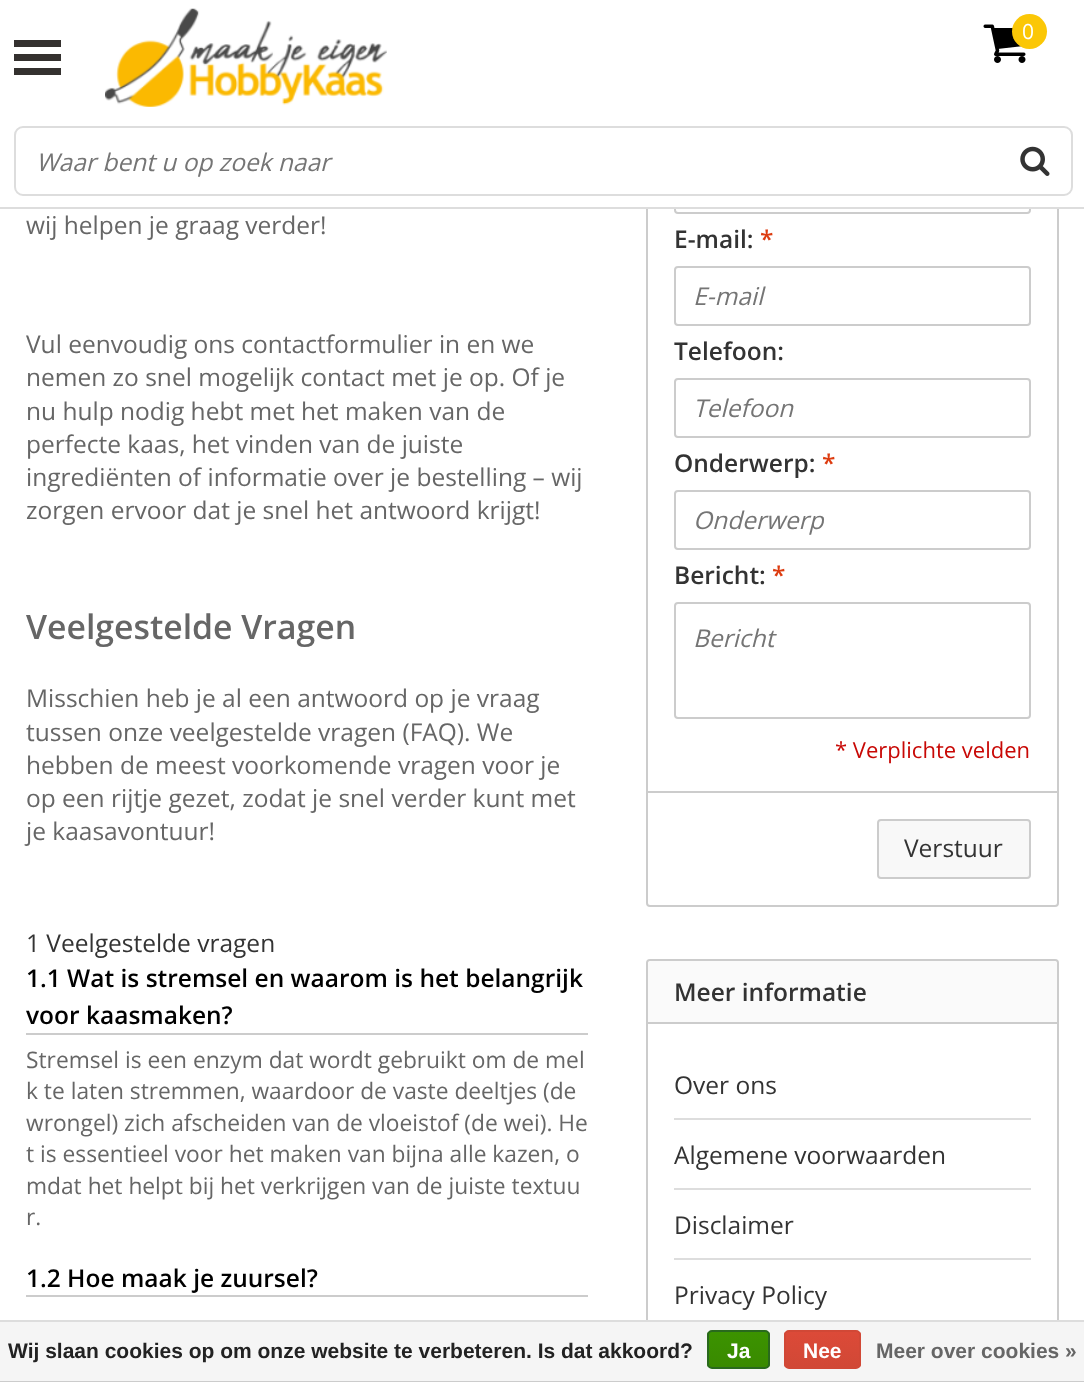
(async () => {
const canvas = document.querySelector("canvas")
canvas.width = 1084
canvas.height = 1382
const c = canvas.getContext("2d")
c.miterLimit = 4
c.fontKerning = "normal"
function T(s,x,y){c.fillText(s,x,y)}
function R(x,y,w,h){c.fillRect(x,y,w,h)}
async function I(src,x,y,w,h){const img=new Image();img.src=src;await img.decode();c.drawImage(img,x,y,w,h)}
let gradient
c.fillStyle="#fff"
R(0,0,1084,1382)
c.beginPath()
c.roundRect(647,-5,411,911,3)
c.strokeStyle="#ccc"
c.lineWidth=2
c.stroke()
c.beginPath()
c.roundRect(675,155,355,58,3)
c.stroke()
R(646,0,413,207)
c.fillStyle="#ddd"
R(0,207,1084,2)
await I("1.png",105,8,282,99)
await I("2.png",983,24,43,39)
c.fillStyle="#fbc706"
c.beginPath()
c.arc(1029.5,31.5,17.5,0,7)
c.fill()
c.font="21px Open Sans"
c.fillStyle="#fff"
T("0",1022,39)
c.fillStyle="#34312f"
R(14,40,47,7)
R(14,54,47,7)
R(14,68,47,7)
c.beginPath()
c.roundRect(15,127,1057,68,8)
c.strokeStyle="#ddd"
c.stroke()
c.font="italic 24.5px Open Sans"
c.fillStyle="#757575"
T("Waar bent u op zoek naar",36,171)
await I("3.png",1020,146,30,30)
c.font="24.5px Open Sans"
c.fillStyle="#666"
T("wij helpen je graag verder!",26,234)
T("Vul eenvoudig ons contactformulier in en we",26,353)
T("nemen zo snel mogelijk contact met je op. Of je",26,386)
T("nu hulp nodig hebt met het maken van de",26,420)
T("perfecte kaas, het vinden van de juiste",26,453)
T("ingrediënten of informatie over je bestelling – wij",26,486)
T("zorgen ervoor dat je snel het antwoord krijgt!",26,519)
c.font="600 33.75px Open Sans"
T("Veelgestelde Vragen",26,639)
c.font="24.5px Open Sans"
T("Misschien heb je al een antwoord op je vraag",26,707)
T("tussen onze veelgestelde vragen (FAQ). We",26,741)
T("hebben de meest voorkomende vragen voor je",26,774)
T("op een rijtje gezet, zodat je snel verder kunt met",26,807)
T("je kaasavontuur!",26,840)
c.fillStyle="#333"
T("1 Veelgestelde vragen",26,952)
c.fillStyle="#ccc"
R(26,1033,562,2)
c.font="600 24.5px Open Sans"
c.fillStyle="#000"
T("1.1 Wat is stremsel en waarom is het belangrijk",26,987)
T("voor kaasmaken?",26,1024)
c.font="22.75px Open Sans"
c.fillStyle="#666"
T("Stremsel is een enzym dat wordt gebruikt om de mel",26,1068)
T("k te laten stremmen, waardoor de vaste deeltjes (de",26,1099)
T("wrongel) zich afscheiden van de vloeistof (de wei). He",26,1131)
T("t is essentieel voor het maken van bijna alle kazen, o",26,1162)
T("mdat het helpt bij het verkrijgen van de juiste textuu",26,1194)
T("r.",26,1225)
c.fillStyle="#ccc"
R(26,1295,562,2)
c.font="600 24.5px Open Sans"
c.fillStyle="#000"
T("1.2 Hoe maak je zuursel?",26,1287)
c.fillStyle="#333"
T("E-mail:",674,248)
c.fillStyle="#dd3c10"
T("*",760,248)
c.beginPath()
c.roundRect(675,267,355,58,3)
c.strokeStyle="#ccc"
c.stroke()
c.font="italic 24.5px Open Sans"
c.fillStyle="#757575"
T("E-mail",693,305)
c.font="600 24.5px Open Sans"
c.fillStyle="#333"
T("Telefoon:",674,360)
c.beginPath()
c.roundRect(675,379,355,58,3)
c.stroke()
c.font="italic 24.5px Open Sans"
c.fillStyle="#757575"
T("Telefoon",693,417)
c.font="600 24.5px Open Sans"
c.fillStyle="#333"
T("Onderwerp:",674,472)
c.fillStyle="#dd3c10"
T("*",822,472)
c.beginPath()
c.roundRect(675,491,355,58,3)
c.stroke()
c.font="italic 24.5px Open Sans"
c.fillStyle="#757575"
T("Onderwerp",693,529)
c.font="600 24.5px Open Sans"
c.fillStyle="#333"
T("Bericht:",674,584)
c.fillStyle="#dd3c10"
T("*",772,584)
c.beginPath()
c.roundRect(675,603,355,115,3)
c.stroke()
c.font="italic 24.5px Open Sans"
c.fillStyle="#757575"
T("Bericht",693,647)
c.font="22px Open Sans"
c.fillStyle="#c80805"
T("* Verplichte velden",835,758)
c.fillStyle="#ccc"
R(648,791,409,2)
c.fillStyle="#f8f8f8"
c.beginPath()
c.roundRect(878,820,152,58,3)
c.fill()
c.stroke()
c.font="24.5px Open Sans"
c.fillStyle="#333"
T("Verstuur",904,857)
c.beginPath()
c.roundRect(647,960,411,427,3)
c.stroke()
c.fillStyle="#fafafa"
c.beginPath()
c.roundRect(648,961,409,63,[4,4,0,0])
c.fill()
c.fillStyle="#ccc"
R(648,1022,409,2)
c.font="600 24.5px Open Sans"
c.fillStyle="#333"
T("Meer informatie",674,1001)
c.fillStyle="#ddd"
R(674,1118,357,2)
c.font="24.5px Open Sans"
c.fillStyle="#333"
T("Over ons",674,1094)
c.fillStyle="#ddd"
R(674,1188,357,2)
c.fillStyle="#333"
T("Algemene voorwaarden",674,1164)
c.fillStyle="#ddd"
R(674,1258,357,2)
c.fillStyle="#333"
T("Disclaimer",674,1234)
T("Privacy Policy",674,1304)
c.fillStyle="#f5f5f5"
R(0,1322,1084,59)
c.fillStyle="#ddd"
R(0,1320,1084,2)
c.fillStyle="#ccc"
R(0,1381,1084,1)
c.font="bold 21px Liberation Sans"
c.fillStyle="#222"
T("Wij slaan cookies op om onze website te verbeteren. Is dat akkoord?",8,1358)
c.save()
c.beginPath()
c.roundRect(707,1330,63,39,5)
c.clip()
gradient = c.createLinearGradient(739,1332,739,1367)
gradient.addColorStop(0,"#3c9300")
gradient.addColorStop(1,"#398a00")
c.fillStyle = gradient
R(707,1332,63,35)
c.restore()
c.beginPath()
c.roundRect(708,1331,61,37,4)
c.strokeStyle="#29691d"
c.stroke()
c.fillStyle="#fff"
T("Ja",727,1358)
c.save()
c.beginPath()
c.roundRect(784,1330,77,39,5)
c.clip()
gradient = c.createLinearGradient(823,1332,823,1367)
gradient.addColorStop(0,"#dc4a38")
gradient.addColorStop(1,"#d14836")
c.fillStyle = gradient
R(784,1332,77,35)
c.restore()
c.beginPath()
c.roundRect(785,1331,75,37,4)
c.strokeStyle="#d14836"
c.stroke()
T("Nee",803,1358)
c.fillStyle="#666"
T("Meer over cookies »",876,1358)
})()
